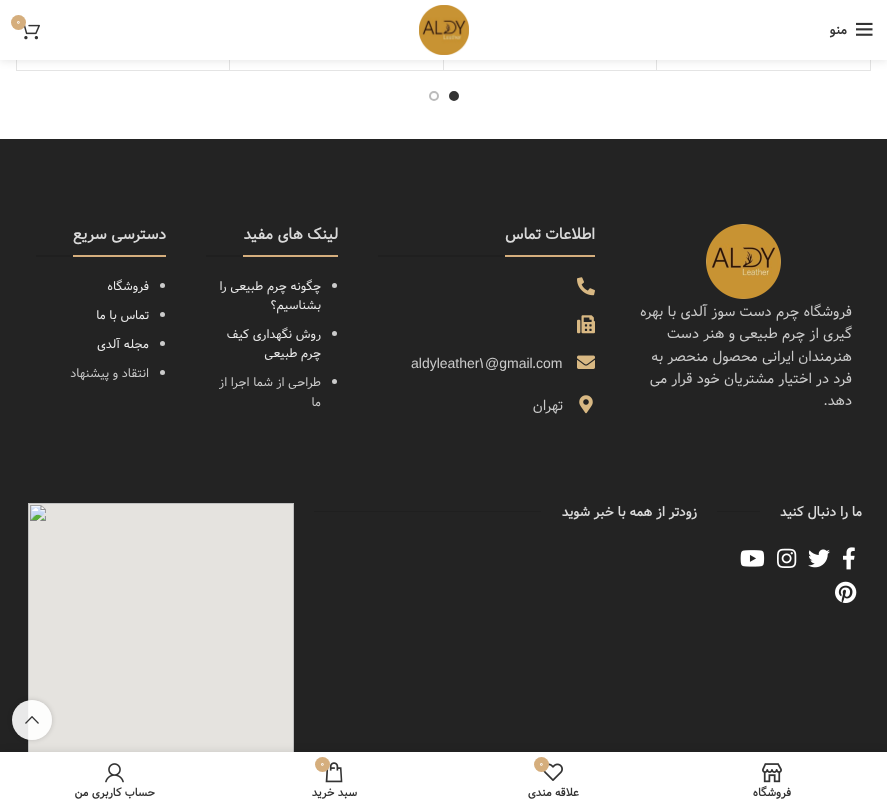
(async () => {
const canvas = document.querySelector("canvas")
canvas.width = 887
canvas.height = 807
const c = canvas.getContext("2d")
c.miterLimit = 4
c.fontKerning = "normal"
function T(s,x,y){c.fillText(s,x,y)}
function R(x,y,w,h){c.fillRect(x,y,w,h)}
async function I(src,x,y,w,h){const img=new Image();img.src=src;await img.decode();c.drawImage(img,x,y,w,h)}
let path
c.fillStyle="#fff"
R(0,0,887,807)
c.strokeStyle="#e4e4e4"
c.strokeRect(16.5,-.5,854,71)
c.fillStyle="#e4e4e4"
R(656,60,1,10)
R(443,60,1,10)
R(229,60,1,10)
c.fillStyle="#333"
c.beginPath()
c.arc(454,96,4,0,7)
c.fill()
c.strokeStyle="#333"
c.lineWidth=2
c.stroke()
c.beginPath()
c.arc(434,96,4,0,7)
c.strokeStyle="#bbb"
c.stroke()
c.fillStyle="#0000001a"
c.filter="blur(4px)"
c.beginPath()
c.rect(0,1,887,60)
c.fill()
c.filter="none"
c.fillStyle="#fff"
R(0,0,887,60)
await I("1.png",419,5,50,50)
await I("2.png",24,24,16,16)
c.fillStyle="#d5ae7d"
c.beginPath()
c.arc(18.5,22.5,7.5,0,7)
c.fill()
c.font="9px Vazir"
c.fillStyle="#fff"
T("0",16,25)
await I("3.png",856,22,17,14)
c.direction="rtl"
c.font="bold 13px Vazir"
c.fillStyle="#333"
T("منو",847,34)
c.fillStyle="#232323"
R(0,139,887,613)
await I("4.png",706,224,75,75)
c.font="14px Vazir"
c.fillStyle="#cbcbcb"
T("فروشگاه چرم دست سوز آلدی با بهره",852,316)
T("گیری از چرم طبیعی و هنر دست",852,338)
T("هنرمندان ایرانی محصول منحصر به",852,361)
T("فرد در اختیار مشتریان خود قرار می",852,383)
T("دهد.",852,405)
c.fillStyle="#1f1f1f"
R(378,255,127,2)
c.fillStyle="#d5ae7d"
R(505,255,90,2)
c.font="bold 15px Vazir"
c.fillStyle="#dadada"
T("اطلاعات تماس",595,239)
await I("5.png",577,277,18,19)
await I("6.png",577,315,18,19)
await I("7.png",577,355,18,14)
c.direction="ltr"
c.font="14px Liberation Sans"
c.fillStyle="#cbcbcb"
T("com",536,368)
c.font="14px Vazir"
T(".",532,368)
c.font="14px Liberation Sans"
T("@gmail",485,368)
c.font="14px Vazir"
T("1",479,368)
c.font="14px Liberation Sans"
T("aldyleather",411,368)
await I("8.png",579,395,14,19)
c.direction="rtl"
c.font="14px Vazir"
T("تهران",563,410)
c.fillStyle="#1f1f1f"
R(206,255,37,2)
c.fillStyle="#d5ae7d"
R(243,255,95,2)
c.font="bold 15px Vazir"
c.fillStyle="#dadada"
T("لینک های مفید",338,239)
c.fillStyle="#cbcbcb"
c.beginPath()
c.arc(334.5,285.5,2.5,0,7)
c.fill()
c.font="12px Vazir"
c.fillStyle="#ededed"
T("چگونه چرم طبیعی را",321,290)
T("بشناسیم؟",321,309)
c.fillStyle="#cbcbcb"
c.beginPath()
c.arc(334.5,333.5,2.5,0,7)
c.fill()
c.fillStyle="#ededed"
T("روش نگهداری کیف",321,338)
T("چرم طبیعی",321,357)
c.fillStyle="#cbcbcb"
c.beginPath()
c.arc(334.5,381.5,2.5,0,7)
c.fill()
T("طراحی از شما اجرا از",321,386)
T("ما",321,406)
c.fillStyle="#1f1f1f"
R(36,255,37,2)
c.fillStyle="#d5ae7d"
R(73,255,93,2)
c.font="bold 15px Vazir"
c.fillStyle="#dadada"
T("دسترسی سریع",166,239)
c.fillStyle="#cbcbcb"
c.beginPath()
c.arc(162.5,285.5,2.5,0,7)
c.fill()
c.font="12px Vazir"
c.fillStyle="#ededed"
T("فروشگاه",149,290)
c.fillStyle="#cbcbcb"
c.beginPath()
c.arc(162.5,314.5,2.5,0,7)
c.fill()
c.fillStyle="#ededed"
T("تماس با ما",149,319)
c.fillStyle="#cbcbcb"
c.beginPath()
c.arc(162.5,343.5,2.5,0,7)
c.fill()
c.fillStyle="#ededed"
T("مجله آلدی",149,348)
c.fillStyle="#cbcbcb"
c.beginPath()
c.arc(162.5,372.5,2.5,0,7)
c.fill()
T("انتقاد و پیشنهاد",149,377)
c.font="bold 13px Vazir"
c.fillStyle="#dadada"
T("ما را دنبال کنید",862,516)
c.fillStyle="#1f1f1f"
R(717,511,43,1)
await I("9.png",843,547,12,23)
await I("10.png",808,549,22,19)
await I("11.png",777,548,20,20)
await I("12.png",740,550,25,17)
await I("13.png",835,581,22,22)
c.fillStyle="#dadada"
T("زودتر از همه با خبر شوید",697,516)
c.fillStyle="#1f1f1f"
R(314,511,227,1)
await I("14.png",28,503,266,249)
c.save()
path = new Path2D("M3 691h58v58h-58zm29 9c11 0 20 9 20 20c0 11-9 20-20 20c-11 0-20-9-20-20c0-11 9-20 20-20z")
c.clip(path,"evenodd")
c.fillStyle="#0000002b"
c.filter="blur(2.5px)"
c.beginPath()
c.roundRect(12,700,40,40,20)
c.fill()
c.filter="none"
c.restore()
c.fillStyle="#ffffffe6"
c.beginPath()
c.arc(32,720,20,0,7)
c.fill()
await I("15.png",25,716,14,8)
c.fillStyle="#0000001f"
c.filter="blur(4.5px)"
c.beginPath()
c.rect(0,752,887,55)
c.fill()
c.filter="none"
c.fillStyle="#fff"
R(0,752,887,55)
await I("16.png",762,763,20,20)
c.font="bold 11px Vazir"
c.fillStyle="#333"
T("فروشگاه",791,796)
await I("17.png",543,763,20,18)
c.fillStyle="#d5ae7d"
c.beginPath()
c.arc(541.5,764.5,7.5,0,7)
c.fill()
c.direction="ltr"
c.font="9px Vazir"
c.fillStyle="#fff"
T("0",539,767)
c.direction="rtl"
c.font="bold 11px Vazir"
c.fillStyle="#333"
T("علاقه مندی",579,796)
await I("18.png",325,762,18,21)
c.fillStyle="#d5ae7d"
c.beginPath()
c.arc(322.5,764.5,7.5,0,7)
c.fill()
c.direction="ltr"
c.font="9px Vazir"
c.fillStyle="#fff"
T("0",320,767)
c.direction="rtl"
c.font="bold 11px Vazir"
c.fillStyle="#333"
T("سبد خرید",357,796)
await I("19.png",105,763,19,20)
T("حساب کاربری من",155,796)
})()
